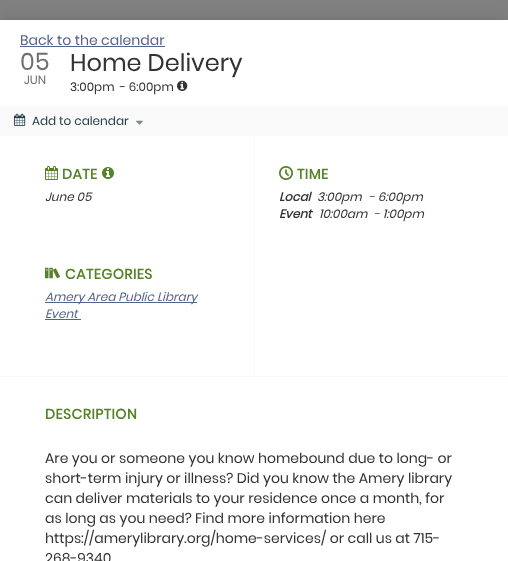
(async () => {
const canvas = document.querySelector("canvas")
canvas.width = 508
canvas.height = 561
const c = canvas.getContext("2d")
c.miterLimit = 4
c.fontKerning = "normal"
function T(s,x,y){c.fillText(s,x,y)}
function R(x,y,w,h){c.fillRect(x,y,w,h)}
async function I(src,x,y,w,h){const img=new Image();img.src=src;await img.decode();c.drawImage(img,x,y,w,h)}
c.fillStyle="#808080"
R(0,0,508,561)
c.fillStyle="#00000021"
c.filter="blur(7px)"
c.beginPath()
c.rect(0,20,508,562)
c.fill()
c.filter="none"
c.fillStyle="#fff"
R(0,20,508,541)
c.font="14px Poppins"
c.fillStyle="#506688"
T("Back to the calendar",20,45)
R(20,46,145,1)
c.font="24px Poppins"
c.fillStyle="#707070"
T("05",20,70)
c.font="12px Poppins"
T("JUN",24,84)
c.font="24px Poppins"
c.fillStyle="#333"
T("Home Delivery",70,71)
c.font="12px Poppins"
T("3:00pm",70,91)
T("- 6:00pm",120,91)
await I("1.png",177,80,11,11)
c.fillStyle="#f9f9f9"
R(0,106,508,30)
await I("2.png",14,113,12,13)
c.fillStyle="#223e49"
T("Add to calendar",32,125)
await I("3.png",136,120,7,5)
c.fillStyle="#f9f9f9"
R(0,376,508,1)
await I("4.png",45,166,13,14)
c.letterSpacing="0.5px"
c.font="bold 14px Poppins"
c.fillStyle="#558228"
T("DATE",62,179)
await I("5.png",102,167,12,12)
c.letterSpacing="0px"
c.font="italic 12px Poppins"
c.fillStyle="#333"
T("June 05",45,201)
c.fillStyle="#f9f9f9"
R(254,136,1,240)
await I("6.png",279,166,14,14)
c.letterSpacing="0.5px"
c.font="bold 14px Poppins"
c.fillStyle="#558228"
T("TIME",297,179)
c.letterSpacing="0px"
c.font="italic bold 12px Poppins"
c.fillStyle="#333"
T("Local",279,201)
c.font="italic 12px Poppins"
T("3:00pm",317,201)
T("- 6:00pm",369,201)
c.font="italic bold 12px Poppins"
T("Event",279,218)
c.font="italic 12px Poppins"
T("10:00am",319,218)
T("- 1:00pm",374,218)
await I("7.png",45,267,15,12)
c.letterSpacing="0.5px"
c.font="bold 14px Poppins"
c.fillStyle="#558228"
T("CATEGORIES",65,279)
c.fillStyle="#506688"
R(45,302,152,1)
c.letterSpacing="0px"
c.font="italic 12px Poppins"
T("Amery Area Public Library",45,301)
T("Event",45,318)
R(45,319,36,1)
c.letterSpacing="0.5px"
c.font="bold 14px Poppins"
c.fillStyle="#558228"
T("DESCRIPTION",45,419)
c.letterSpacing="0px"
c.font="14px Poppins"
c.fillStyle="#333"
T("Are you or someone you know homebound due to long- or",45,463)
T("short-term injury or illness? Did you know the Amery library",45,483)
T("can deliver materials to your residence once a month, for",45,503)
T("as long as you need? Find more information here",45,523)
T("https://amerylibrary.org/home-services/ or call us at 715-",45,543)
T("268-9340",45,563)
})()
